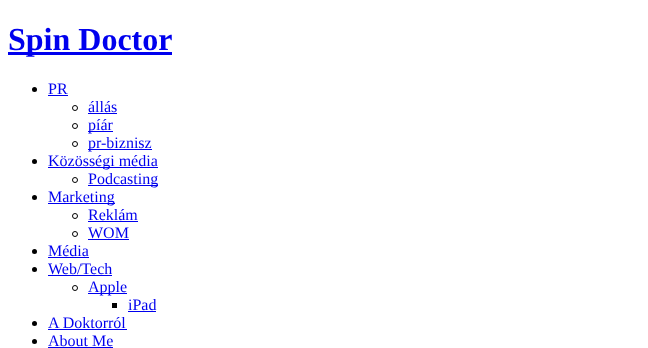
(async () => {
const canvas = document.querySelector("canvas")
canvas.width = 648
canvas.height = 348
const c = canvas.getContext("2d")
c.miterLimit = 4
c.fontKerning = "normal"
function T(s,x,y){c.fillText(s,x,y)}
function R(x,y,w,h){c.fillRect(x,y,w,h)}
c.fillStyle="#fff"
R(0,0,648,348)
c.fillStyle="#00e"
R(8,52,164,3)
c.font="bold 32px Liberation Serif"
T("Spin Doctor",8,50)
c.fillStyle="#000"
c.beginPath()
c.arc(34.5,89.5,2.5,0,7)
c.fill()
c.font="16px Liberation Serif"
c.fillStyle="#00e"
T("PR",48,94)
R(48,95,20,1)
c.beginPath()
c.arc(75,108,2.5,0,7)
c.strokeStyle="#000"
c.stroke()
T("állás",88,112)
R(88,113,29,1)
c.beginPath()
c.arc(75,126,2.5,0,7)
c.stroke()
R(88,131,25,1)
T("píár",88,130)
c.beginPath()
c.arc(75,144,2.5,0,7)
c.stroke()
R(88,149,64,1)
T("pr-biznisz",88,148)
c.fillStyle="#000"
c.beginPath()
c.arc(34.5,161.5,2.5,0,7)
c.fill()
c.fillStyle="#00e"
R(48,167,110,1)
T("Közösségi média",48,166)
c.beginPath()
c.arc(75,180,2.5,0,7)
c.stroke()
R(88,185,70,1)
T("Podcasting",88,184)
c.fillStyle="#000"
c.beginPath()
c.arc(34.5,197.5,2.5,0,7)
c.fill()
c.fillStyle="#00e"
R(48,203,67,1)
T("Marketing",48,202)
c.beginPath()
c.arc(75,216,2.5,0,7)
c.stroke()
T("Reklám",88,220)
R(88,221,50,1)
c.beginPath()
c.arc(75,234,2.5,0,7)
c.stroke()
T("WOM",88,238)
R(88,239,41,1)
c.fillStyle="#000"
c.beginPath()
c.arc(34.5,251.5,2.5,0,7)
c.fill()
c.fillStyle="#00e"
T("Média",48,256)
R(48,257,41,1)
c.fillStyle="#000"
c.beginPath()
c.arc(34.5,269.5,2.5,0,7)
c.fill()
c.fillStyle="#00e"
T("Web/Tech",48,274)
R(48,275,64,1)
c.beginPath()
c.arc(75,288,2.5,0,7)
c.stroke()
R(88,293,39,1)
T("Apple",88,292)
c.fillStyle="#000"
R(112,303,5,5)
c.fillStyle="#00e"
T("iPad",128,310)
R(128,311,28,1)
c.fillStyle="#000"
c.beginPath()
c.arc(34.5,323.5,2.5,0,7)
c.fill()
c.fillStyle="#00e"
T("A Doktorról",48,328)
R(48,329,79,1)
c.fillStyle="#000"
c.beginPath()
c.arc(34.5,341.5,2.5,0,7)
c.fill()
c.fillStyle="#00e"
T("About Me",48,346)
R(48,347,65,1)
})()
